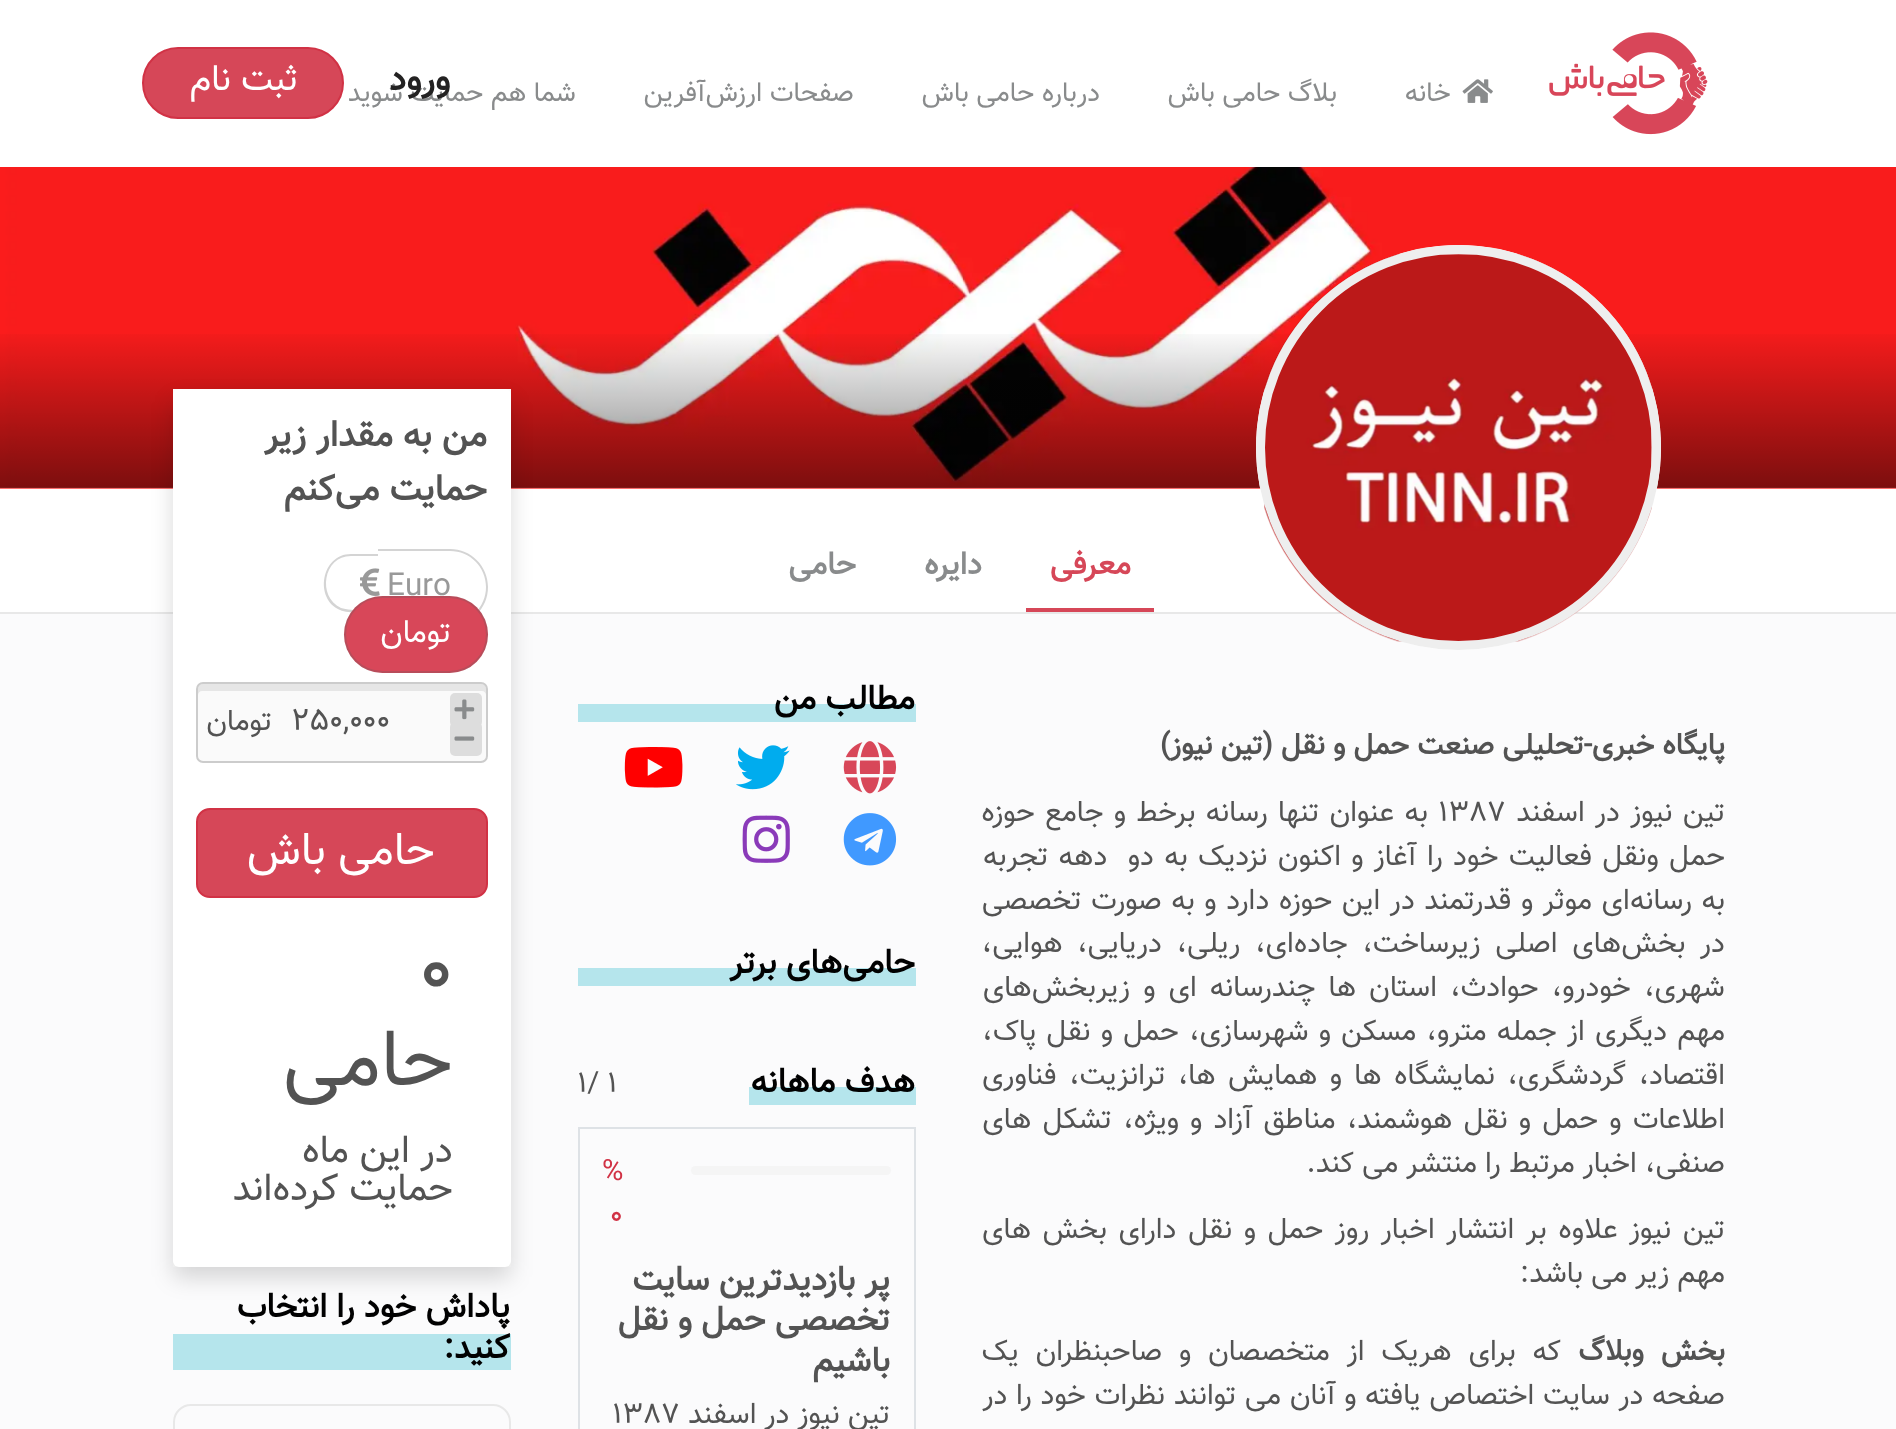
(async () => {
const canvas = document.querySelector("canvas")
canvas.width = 1896
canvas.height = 1429
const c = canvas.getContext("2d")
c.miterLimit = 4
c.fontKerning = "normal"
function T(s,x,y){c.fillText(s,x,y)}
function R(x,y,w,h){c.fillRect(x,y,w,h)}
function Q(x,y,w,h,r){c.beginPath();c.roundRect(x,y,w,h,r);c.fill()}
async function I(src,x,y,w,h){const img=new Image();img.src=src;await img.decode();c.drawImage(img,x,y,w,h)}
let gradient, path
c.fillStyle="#fff"
R(0,0,1896,1429)
await I("1.png",1549,32,159,103)
await I("2.png",1462,79,31,24)
c.direction="rtl"
c.font="27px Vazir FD"
c.fillStyle="#898b8c"
T("خانه",1451,101)
T("بلاگ حامی باش",1337,101)
T("درباره حامی باش",1100,101)
T("صفحات ارزش‌آفرین",854,101)
T("شما هم حمایت شوید",576,101)
c.font="bold 36px Vazir FD"
c.fillStyle="#232222"
T("ورود",450,90)
c.fillStyle="#d64758"
c.beginPath()
c.roundRect(143,48,200,70,35)
c.fill()
c.strokeStyle="#d13245"
c.lineWidth=2
c.stroke()
c.font="36px Vazir FD"
c.fillStyle="#fff"
T("ثبت نام",298,90)
c.fillStyle="#fbfbfc"
R(0,487,1896,942)
c.fillStyle="#fff"
R(0,488,1896,124)
await I("3.png",0,167,1896,322)
gradient = c.createLinearGradient(948,166,948,488)
gradient.addColorStop(.5,"#00000000")
gradient.addColorStop(1,"#00000080")
c.fillStyle = gradient
R(0,334,1896,154)
c.fillStyle="#e8e8e8"
R(0,612,1896,2)
c.fillStyle="#fff"
c.beginPath()
c.arc(1458.5,447.5,202.5,0,7)
c.fill()
await I("4.png",1264,254,388,388)
c.beginPath()
c.arc(1458.5,447.5,198,0,7)
c.strokeStyle="#eee"
c.lineWidth=9
c.stroke()
c.font="bold 29.25px Vazir FD"
c.fillStyle="#535353"
T("پایگاه خبری-تحلیلی صنعت حمل و نقل (تین نیوز)",1725,754)
c.wordSpacing="2.25px"
c.font="29.25px Vazir FD"
T("تین نیوز در اسفند",1725,821)
c.wordSpacing="0px"
c.direction="ltr"
T("1387",1438,821)
c.wordSpacing="2.25px"
c.direction="rtl"
T("به عنوان تنها رسانه برخط و جامع حوزه",1428,821)
T("حمل ونقل فعالیت خود را آغاز و اکنون نزدیک به دو  دهه تجربه",1725,865)
c.wordSpacing="1.5px"
T("به رسانه‌ای موثر و قدرتمند در این حوزه دارد و به صورت تخصصی",1725,909)
c.wordSpacing="6.5px"
T("در بخش‌های اصلی زیرساخت، جاده‌ای، ریلی، دریایی، هوایی،",1725,952)
c.wordSpacing="5px"
T("شهری، خودرو، حوادث، استان ها چندرسانه ای و زیربخش‌های",1725,996)
c.wordSpacing="2.1px"
T("مهم دیگری از جمله مترو، مسکن و شهرسازی، حمل و نقل پاک،",1725,1040)
c.wordSpacing="4.25px"
T("اقتصاد، گردشگری، نمایشگاه ها و همایش ها، ترانزیت، فناوری",1725,1084)
c.wordSpacing="3.1px"
T("اطلاعات و حمل و نقل هوشمند، مناطق آزاد و ویژه، تشکل های",1725,1128)
c.wordSpacing="0px"
T("صنفی، اخبار مرتبط را منتشر می کند.",1725,1172)
c.wordSpacing="3.5px"
T("تین نیوز علاوه بر انتشار اخبار روز حمل و نقل دارای بخش های",1725,1238)
c.wordSpacing="0px"
T("مهم زیر می باشد:",1725,1282)
c.wordSpacing="8.75px"
c.font="bold 29.25px Vazir FD"
T("بخش وبلاگ",1725,1360)
c.font="29.25px Vazir FD"
T("که برای هریک از متخصصان و صاحبنظران یک",1561,1360)
c.wordSpacing="0.6px"
T("صفحه در سایت اختصاص یافته و آنان می توانند نظرات خود را در",1725,1404)
c.fillStyle="#b5e5ec"
R(578,704,338,18)
c.wordSpacing="0px"
c.font="bold 33.75px Vazir FD"
c.fillStyle="#010101"
T("مطالب من",915,709)
await I("5.png",843,741,54,53)
await I("6.png",736,745,54,45)
await I("7.png",624,747,59,41)
await I("8.png",843,813,54,53)
await I("9.png",742,815,48,48)
c.fillStyle="#b5e5ec"
R(578,968,338,18)
c.fillStyle="#010101"
T("حامی‌های برتر",915,973)
c.fillStyle="#b5e5ec"
R(749,1087,167,18)
c.fillStyle="#010101"
T("هدف ماهانه",915,1092)
c.direction="ltr"
c.font="29.25px Vazir FD"
c.fillStyle="#535353"
T("1",607,1092)
T("1/",577,1092)
c.strokeStyle="#dee2e6"
c.lineWidth=2
c.strokeRect(579,1128,336,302)
c.fillStyle="#f5f5f5"
Q(691,1166,200,9,4.5)
c.fillStyle="#d13245"
T("%",602,1180)
T("0",610,1224)
c.direction="rtl"
c.font="bold 33.75px Vazir FD"
c.fillStyle="#535353"
T("پر بازدیدترین سایت",890,1290)
T("تخصصی حمل و نقل",890,1330)
T("باشیم",890,1371)
c.font="29.25px Vazir FD"
T("تین نیوز در اسفند",890,1423)
c.direction="ltr"
T("1387",612,1423)
c.fillStyle="#fff"
R(173,389,338,878)
c.fillStyle="#00000026"
c.filter="blur(11px)"
c.beginPath()
c.roundRect(173,401,338,877,6)
c.fill()
c.filter="none"
c.fillStyle="#fff"
Q(173,389,338,878,6)
c.direction="rtl"
c.font="bold 36px Vazir FD"
c.fillStyle="#535353"
T("من به مقدار زیر",487,446)
T("حمایت می‌کنم",487,500)
c.fillStyle="#d4d4d4"
path = new Path2D("M351 554h27v58c-10 0-29 2-38-2c-26-11-19-56 11-56zm0 2h27v54c-10 0-28 1-37-2c-24-11-18-52 10-52z")
c.fill(path,"evenodd")
path = new Path2D("M378 549h72c21 0 38 17 38 38c0 21-17 39-38 39h-72zm0 2h72c20 0 36 16 36 36c0 20-16 36-36 36h-72z")
c.fill(path,"evenodd")
c.direction="ltr"
c.font="31.5px Vazir FD"
c.fillStyle="#999"
T("Euro",387,595)
await I("10.png",360,568,20,28)
c.fillStyle="#d84759"
Q(344,596,144,77,38.5)
c.beginPath()
c.roundRect(345,597,142,75,37.5)
c.strokeStyle="#5b5b5b42"
c.stroke()
c.direction="rtl"
c.fillStyle="#fff"
T("تومان",451,642)
c.fillStyle="#fafafa"
Q(198,684,288,77,5)
c.fillStyle="#e6e6e6"
path = new Path2D("M202 691h280c2 0 4 2 4 4v-6c0-3-2-5-5-5h-278c-3 0-5 2-5 5v6c0-2 2-4 4-4z")
c.fill(path)
c.beginPath()
c.roundRect(197,683,290,79,6)
c.strokeStyle="#ccc"
c.stroke()
c.fillStyle="#ddd"
Q(450,693,32,34,5)
await I("11.png",454,699,21,21)
c.direction="ltr"
c.fillStyle="#535353"
T("250,000",291,730)
c.fillStyle="#ddd"
Q(450,722,32,34,5)
await I("12.png",454,736,21,5)
c.direction="rtl"
c.font="29.25px Vazir FD"
c.fillStyle="#535353"
T("تومان",272,730)
c.fillStyle="#d64758"
c.beginPath()
c.roundRect(197,809,290,88,13)
c.fill()
c.strokeStyle="#d13245"
c.stroke()
c.font="45px Vazir FD"
c.fillStyle="#fff"
T("حامی باش",435,864)
c.direction="ltr"
c.font="79px Vazir FD"
c.fillStyle="#535353"
T("0",419,995)
c.direction="rtl"
T("حامی",453,1085)
c.font="38.25px Vazir FD"
T("در این ماه",453,1162)
T("حمایت کرده‌اند",453,1200)
c.fillStyle="#b5e5ec"
R(173,1334,338,36)
c.font="bold 33.75px Vazir FD"
c.fillStyle="#010101"
T("پاداش خود را انتخاب",510,1317)
T("کنید:",510,1358)
c.beginPath()
c.roundRect(174,1405,336,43,17)
c.strokeStyle="#e8e8e8"
c.stroke()
c.fillStyle="#d64758"
R(1026,608,128,4)
c.font="bold 31.5px Vazir FD"
T("معرفی",1131,574)
c.fillStyle="#898b8c"
T("دایره",982,574)
T("حامی",856,574)
})()
